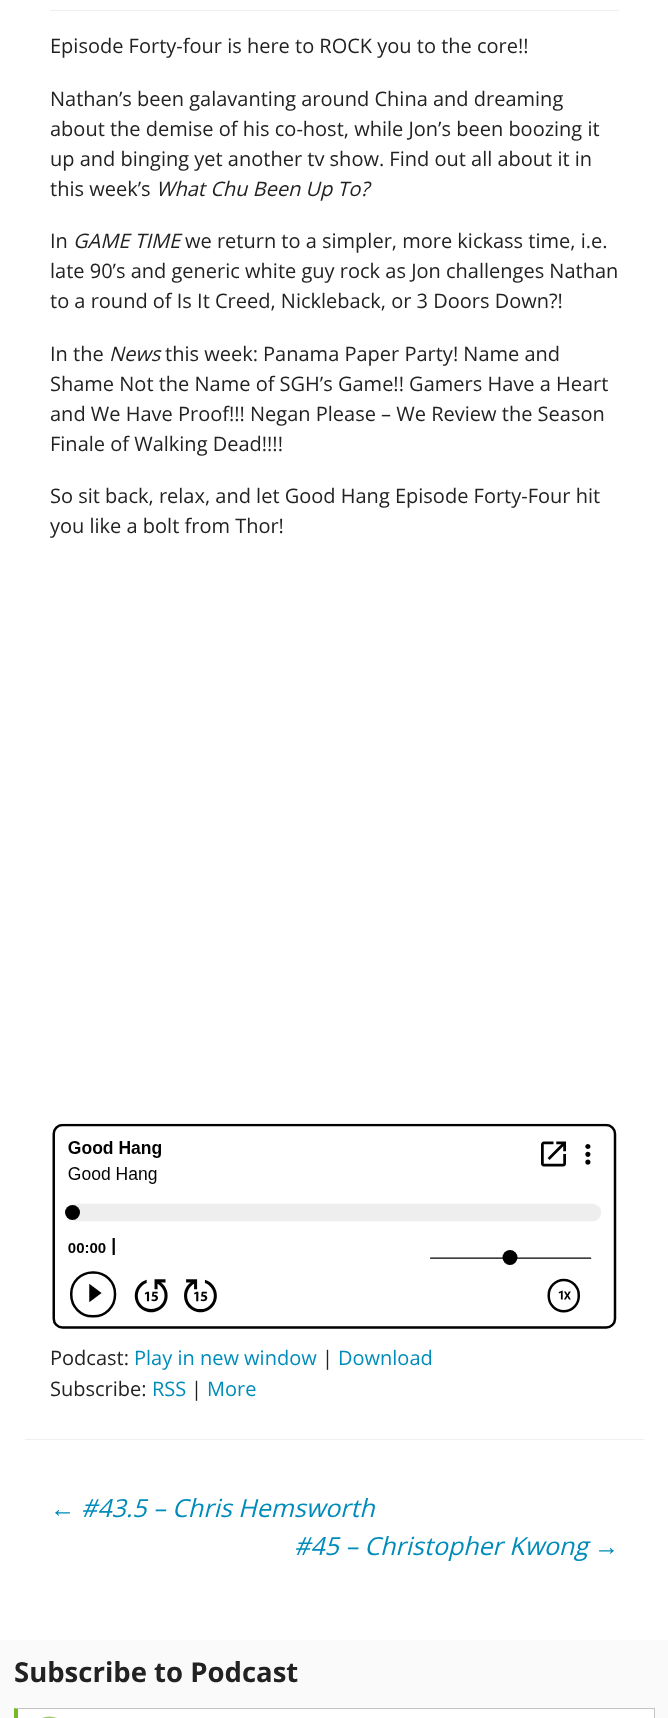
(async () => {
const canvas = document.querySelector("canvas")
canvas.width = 668
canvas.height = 1718
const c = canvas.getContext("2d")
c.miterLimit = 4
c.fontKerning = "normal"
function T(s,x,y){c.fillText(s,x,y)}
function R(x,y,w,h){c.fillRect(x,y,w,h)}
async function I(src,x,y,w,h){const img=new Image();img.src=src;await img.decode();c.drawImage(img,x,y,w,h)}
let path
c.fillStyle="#fff"
R(0,0,668,1718)
c.fillStyle="#ecf0f1"
R(50,10,569,1)
c.font="20px Open Sans"
c.fillStyle="#222"
T("Episode Forty-four is here to ROCK you to the core!!",50,53)
T("Nathan’s been galavanting around China and dreaming",50,106)
T("about the demise of his co-host, while Jon’s been boozing it",50,136)
T("up and binging yet another tv show. Find out all about it in",50,166)
T("this week’s",50,196)
c.font="italic 20px Open Sans"
T("What Chu Been Up To?",156,196)
c.font="20px Open Sans"
T("In",50,248)
c.font="italic 20px Open Sans"
T("GAME TIME",73,248)
c.font="20px Open Sans"
T("we return to a simpler, more kickass time, i.e.",185,248)
T("late 90’s and generic white guy rock as Jon challenges Nathan",50,278)
T("to a round of Is It Creed, Nickleback, or 3 Doors Down?!",50,308)
T("In the",50,361)
c.font="italic 20px Open Sans"
T("News",109,361)
c.font="20px Open Sans"
T("this week: Panama Paper Party! Name and",165,361)
T("Shame Not the Name of SGH’s Game!! Gamers Have a Heart",50,391)
T("and We Have Proof!!! Negan Please – We Review the Season",50,421)
T("Finale of Walking Dead!!!!",50,451)
T("So sit back, relax, and let Good Hang Episode Forty-Four hit",50,503)
T("you like a bolt from Thor!",50,533)
await I("1.png",52,1123,565,206)
T("Podcast:",50,1365)
c.fillStyle="#008cba"
T("Play in new window",134,1365)
c.fillStyle="#222"
T("|",322,1365)
c.fillStyle="#008cba"
T("Download",338,1365)
c.fillStyle="#222"
T("Subscribe:",50,1396)
c.fillStyle="#008cba"
T("RSS",152,1396)
c.fillStyle="#222"
T("|",191,1396)
c.fillStyle="#008cba"
T("More",207,1396)
c.fillStyle="#ecf0f1"
R(25,1439,619,1)
c.font="italic 25px Liberation Sans"
c.fillStyle="#008cba"
T("←",50,1517)
c.font="italic 25px Open Sans"
T("#43.5 – Chris Hemsworth",81,1517)
T("#45 – Christopher Kwong",294,1555)
c.font="italic 25px Liberation Sans"
T("→",594,1555)
c.fillStyle="#fafafa"
R(0,1640,668,78)
c.font="bold 27.5px Open Sans"
c.fillStyle="#222"
T("Subscribe to Podcast",14,1682)
c.fillStyle="#fff"
R(18,1709,636,9)
c.fillStyle="#c4c4c4"
path = new Path2D("M14 1708h641l-1 1h-636z")
c.fill(path)
R(654,1708,1,10)
c.fillStyle="#75ba26"
path = new Path2D("M14 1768v-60l4 1v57z")
c.fill(path)
await I("2.png",42,1716,15,2)
})()
